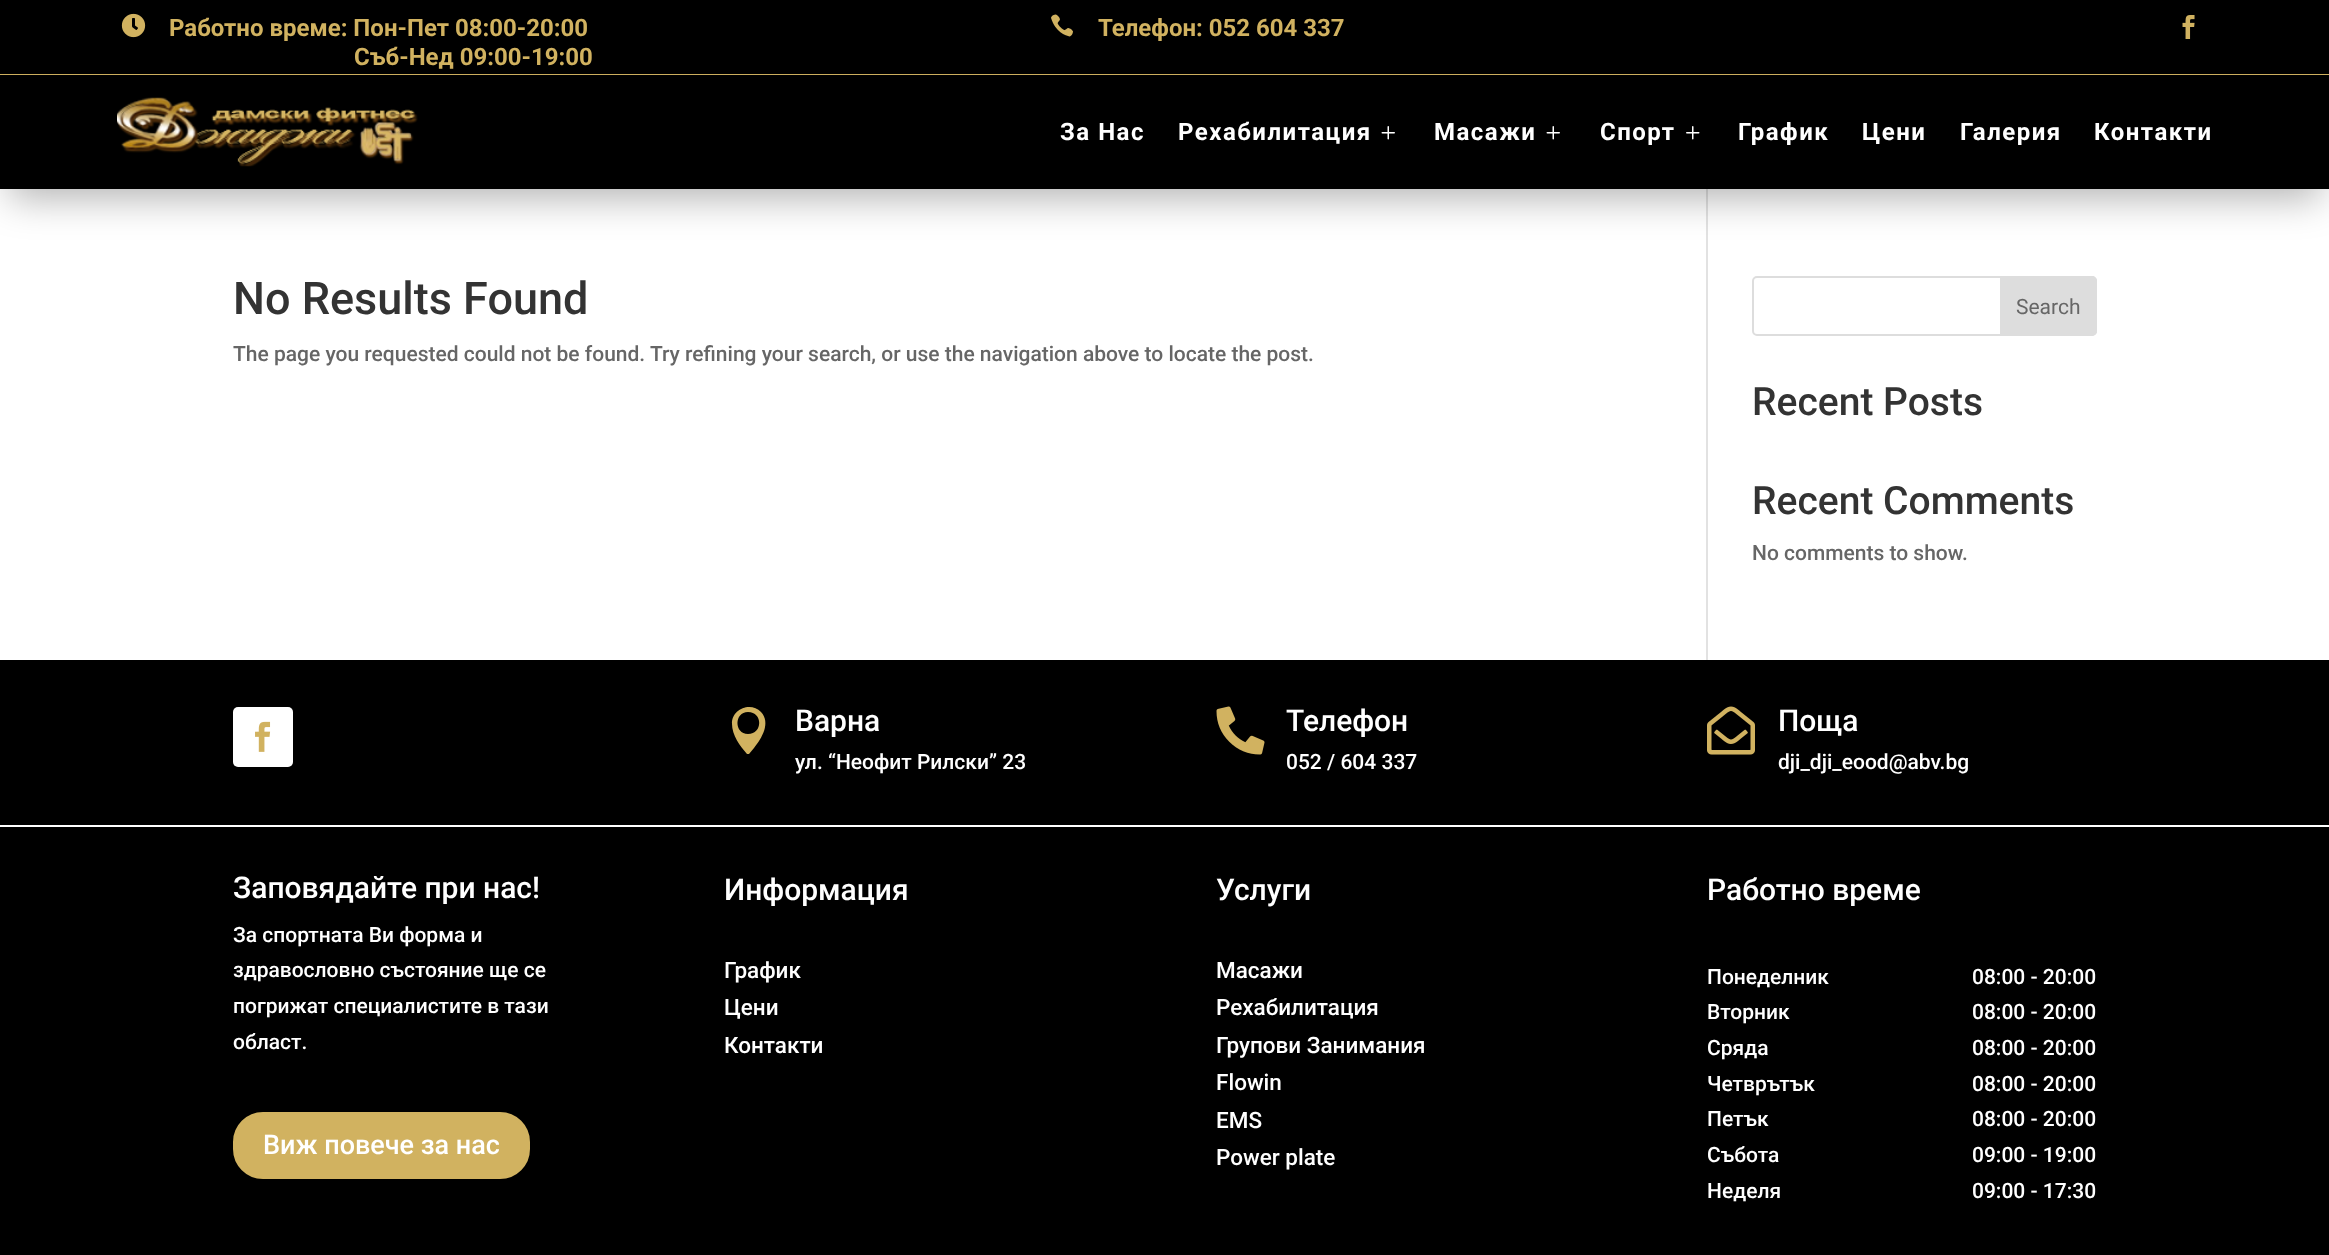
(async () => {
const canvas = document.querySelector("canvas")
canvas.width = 2329
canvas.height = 1255
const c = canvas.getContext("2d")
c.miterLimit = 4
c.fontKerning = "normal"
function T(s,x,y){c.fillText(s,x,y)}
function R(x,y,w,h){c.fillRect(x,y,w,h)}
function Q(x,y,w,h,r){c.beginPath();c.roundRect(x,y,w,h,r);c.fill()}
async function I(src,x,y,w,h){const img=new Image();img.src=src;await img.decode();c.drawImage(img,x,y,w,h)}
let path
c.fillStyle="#fff"
R(0,0,2329,1255)
c.fillStyle="#000"
R(0,0,2329,74)
c.fillStyle="#d1b260"
R(0,74,2329,1)
await I("1.png",121,13,25,25)
c.font="bold 24px Roboto"
T("Работно време: Пон-Пет 08:00-20:00",169,36)
T("Съб-Нед 09:00-19:00",354,65)
await I("2.png",1051,14,22,23)
T("Телефон: 052 604 337",1098,36)
await I("3.png",2182,15,13,24)
c.fillStyle="#e2e2e2"
R(1706,189,2,471)
c.fillStyle="#0000004d"
c.filter="blur(19px)"
c.beginPath()
c.rect(9,102,2312,96)
c.fill()
c.filter="none"
c.fillStyle="#000"
R(0,75,2329,114)
await I("4.png",117,97,301,70)
c.letterSpacing="1.5px"
c.fillStyle="#fff"
T("За Нас",1060,140)
T("Рехабилитация",1178,140)
await I("5.png",1381,126,14,14)
T("Масажи",1434,140)
await I("5.png",1546,126,14,14)
T("Спорт",1600,140)
await I("6.png",1686,126,14,14)
T("График",1738,140)
T("Цени",1862,140)
T("Галерия",1960,140)
T("Контакти",2094,140)
c.letterSpacing="0px"
c.font="500 45px Roboto"
c.fillStyle="#333"
T("No Results Found",233,314)
c.font="500 21px Roboto"
c.fillStyle="#666"
T("The page you requested could not be found. Try refining your search, or use the navigation above to locate the post.",233,361)
c.beginPath()
c.roundRect(1753,277,343,58,4)
c.strokeStyle="#ddd"
c.lineWidth=2
c.stroke()
c.fillStyle="#ddd"
c.beginPath()
c.roundRect(2001,277,95,58,[0,4,4,0])
c.fill()
c.stroke()
c.font="21px Roboto"
c.fillStyle="#666"
T("Search",2016,314)
c.font="500 39px Roboto"
c.fillStyle="#333"
T("Recent Posts",1752,415)
T("Recent Comments",1752,514)
c.font="500 21px Roboto"
c.fillStyle="#666"
T("No comments to show.",1752,560)
c.fillStyle="#000"
R(0,660,2329,165)
c.fillStyle="#fff"
Q(233,707,60,60,5)
await I("7.png",255,721,16,31)
c.fillStyle="#d1b260"
path = new Path2D("M747 754h2l5-6c8-10 17-25 7-36c-10-11-30-3-29 12c0 11 8 22 15 30zm1-42c15 0 15 22 0 22c-14 0-14-22 0-22z")
c.fill(path)
c.font="500 30px Roboto"
c.fillStyle="#fff"
T("Варна",795,731)
c.font="500 21px Roboto"
T("ул. “Неофит Рилски” 23",795,769)
await I("8.png",1216,706,49,49)
c.font="500 30px Roboto"
T("Телефон",1286,731)
c.font="500 21px Roboto"
T("052 / 604 337",1286,769)
await I("9.png",1707,706,48,49)
c.font="500 30px Roboto"
T("Поща",1778,731)
c.font="500 21px Roboto"
T("dji_dji_eood@abv.bg",1778,769)
c.fillStyle="#000"
R(0,827,2329,428)
c.font="500 30px Roboto"
c.fillStyle="#fff"
T("Заповядайте при нас!",233,898)
c.font="500 21px Roboto"
T("За спортната Ви форма и",233,942)
T("здравословно състояние ще се",233,977)
T("погрижат специалистите в тази",233,1013)
T("област.",233,1049)
c.fillStyle="#d1b260"
c.beginPath()
c.roundRect(234.5,1113.5,294,64,28.5)
c.fill()
c.strokeStyle="#d1b260"
c.lineWidth=3
c.stroke()
c.font="500 27px Roboto"
c.fillStyle="#fff"
T("Виж повече за нас",263,1154)
c.font="500 30px Roboto"
T("Информация",724,900)
c.font="500 22.5px Roboto"
T("График",724,978)
T("Цени",724,1015)
T("Контакти",724,1053)
c.font="500 30px Roboto"
T("Услуги",1216,900)
c.font="500 22.5px Roboto"
T("Масажи",1216,978)
T("Рехабилитация",1216,1015)
T("Групови Занимания",1216,1053)
T("Flowin",1216,1090)
T("EMS",1216,1128)
T("Power plate",1216,1165)
c.font="500 30px Roboto"
T("Работно време",1707,900)
c.font="500 21px Roboto"
T("Понеделник",1707,984)
T("08:00 - 20:00",1972,984)
T("Вторник",1707,1019)
T("08:00 - 20:00",1972,1019)
T("Сряда",1707,1055)
T("08:00 - 20:00",1972,1055)
T("Четврътък",1707,1091)
T("08:00 - 20:00",1972,1091)
T("Петък",1707,1126)
T("08:00 - 20:00",1972,1126)
T("Събота",1707,1162)
T("09:00 - 19:00",1972,1162)
T("Неделя",1707,1198)
T("09:00 - 17:30",1972,1198)
})()
